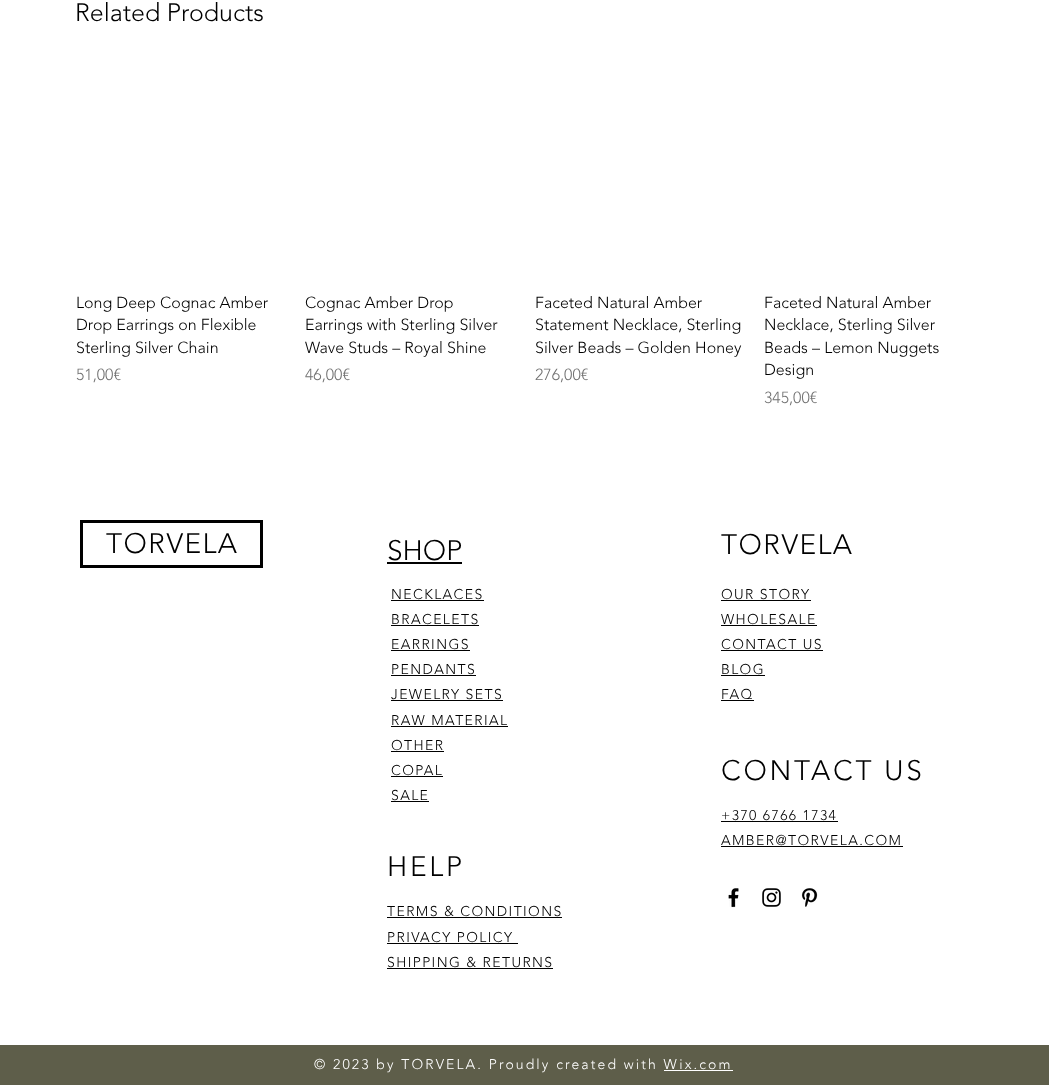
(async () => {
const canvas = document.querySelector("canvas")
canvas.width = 1049
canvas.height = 1085
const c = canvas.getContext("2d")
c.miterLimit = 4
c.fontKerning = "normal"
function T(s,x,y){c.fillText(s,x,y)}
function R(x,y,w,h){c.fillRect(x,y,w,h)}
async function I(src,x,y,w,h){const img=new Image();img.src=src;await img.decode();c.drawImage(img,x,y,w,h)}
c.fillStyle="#fff"
R(0,0,1049,1085)
c.font="300 25px 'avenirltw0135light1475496'"
c.fillStyle="#000"
T("Related Products",75,21)
c.font="300 16px 'avenirltw0135light1475496'"
T("Long Deep Cognac Amber",76,308)
T("Drop Earrings on Flexible",76,330)
T("Sterling Silver Chain",76,353)
c.fillStyle="#737373"
T("51,00€",76,380)
c.fillStyle="#000"
T("Cognac Amber Drop",305,308)
T("Earrings with Sterling Silver",305,330)
T("Wave Studs – Royal Shine",305,353)
c.fillStyle="#737373"
T("46,00€",305,380)
c.fillStyle="#000"
T("Faceted Natural Amber",535,308)
T("Statement Necklace, Sterling",535,330)
T("Silver Beads – Golden Honey",535,353)
c.fillStyle="#737373"
T("276,00€",535,380)
c.fillStyle="#000"
T("Faceted Natural Amber",764,308)
T("Necklace, Sterling Silver",764,330)
T("Beads – Lemon Nuggets",764,353)
T("Design",764,375)
c.fillStyle="#737373"
T("345,00€",764,403)
c.strokeStyle="#000"
c.lineWidth=3
c.strokeRect(81.5,521.5,180,45)
c.letterSpacing="1.4px"
c.font="300 28px 'avenirltw0135light1475496'"
c.fillStyle="#000"
T("TORVELA",106,553)
c.letterSpacing="0px"
T("SHOP",387,560)
R(387,562,75,2)
c.letterSpacing="1.4px"
c.font="300 14px 'avenirltw0135light1475496'"
T("NECKLACES",391,599)
R(391,600,93,1)
T("BRACELETS",391,624)
R(391,625,88,1)
T("EARRINGS",391,649)
R(391,650,79,1)
T("PENDANTS",391,674)
R(391,675,85,1)
T("JEWELRY SETS",391,699)
R(391,700,112,1)
T("RAW MATERIAL",391,725)
R(391,726,117,1)
T("OTHER",391,750)
R(391,751,53,1)
T("COPAL",391,775)
R(391,776,52,1)
T("SALE",391,800)
R(391,801,38,1)
c.letterSpacing="2.75px"
c.font="300 28px 'avenirltw0135light1475496'"
T("HELP",387,876)
c.letterSpacing="1.4px"
c.font="300 14px 'avenirltw0135light1475496'"
T("TERMS & CONDITIONS",387,916)
R(387,917,175,1)
T("PRIVACY POLICY",387,942)
R(387,943,131,1)
T("SHIPPING & RETURNS",387,967)
R(387,968,166,1)
c.font="300 28px 'avenirltw0135light1475496'"
T("TORVELA",721,554)
c.font="300 14px 'avenirltw0135light1475496'"
T("OUR STORY",721,599)
R(721,600,90,1)
T("WHOLESALE",721,624)
R(721,625,96,1)
T("CONTACT US",721,649)
R(721,650,102,1)
T("BLOG",721,674)
R(721,675,44,1)
T("FAQ",721,699)
R(721,700,33,1)
c.letterSpacing="2.75px"
c.font="300 28px 'avenirltw0135light1475496'"
T("CONTACT US",721,780)
c.letterSpacing="1.4px"
c.font="300 14px 'avenirltw0135light1475496'"
T("+370 6766 1734",721,820)
R(721,821,117,1)
T("AMBER@TORVELA.COM",721,845)
R(721,846,182,1)
await I("1.png",728,888,11,20)
await I("2.png",762,888,19,19)
await I("3.png",801,888,17,19)
c.fillStyle="#5e5e4a"
R(0,1045,1049,40)
c.letterSpacing="2.1px"
c.fillStyle="#fff"
T("© 2023 by TORVELA. Proudly created with Wix.com",314,1069)
R(664,1070,69,1)
})()
